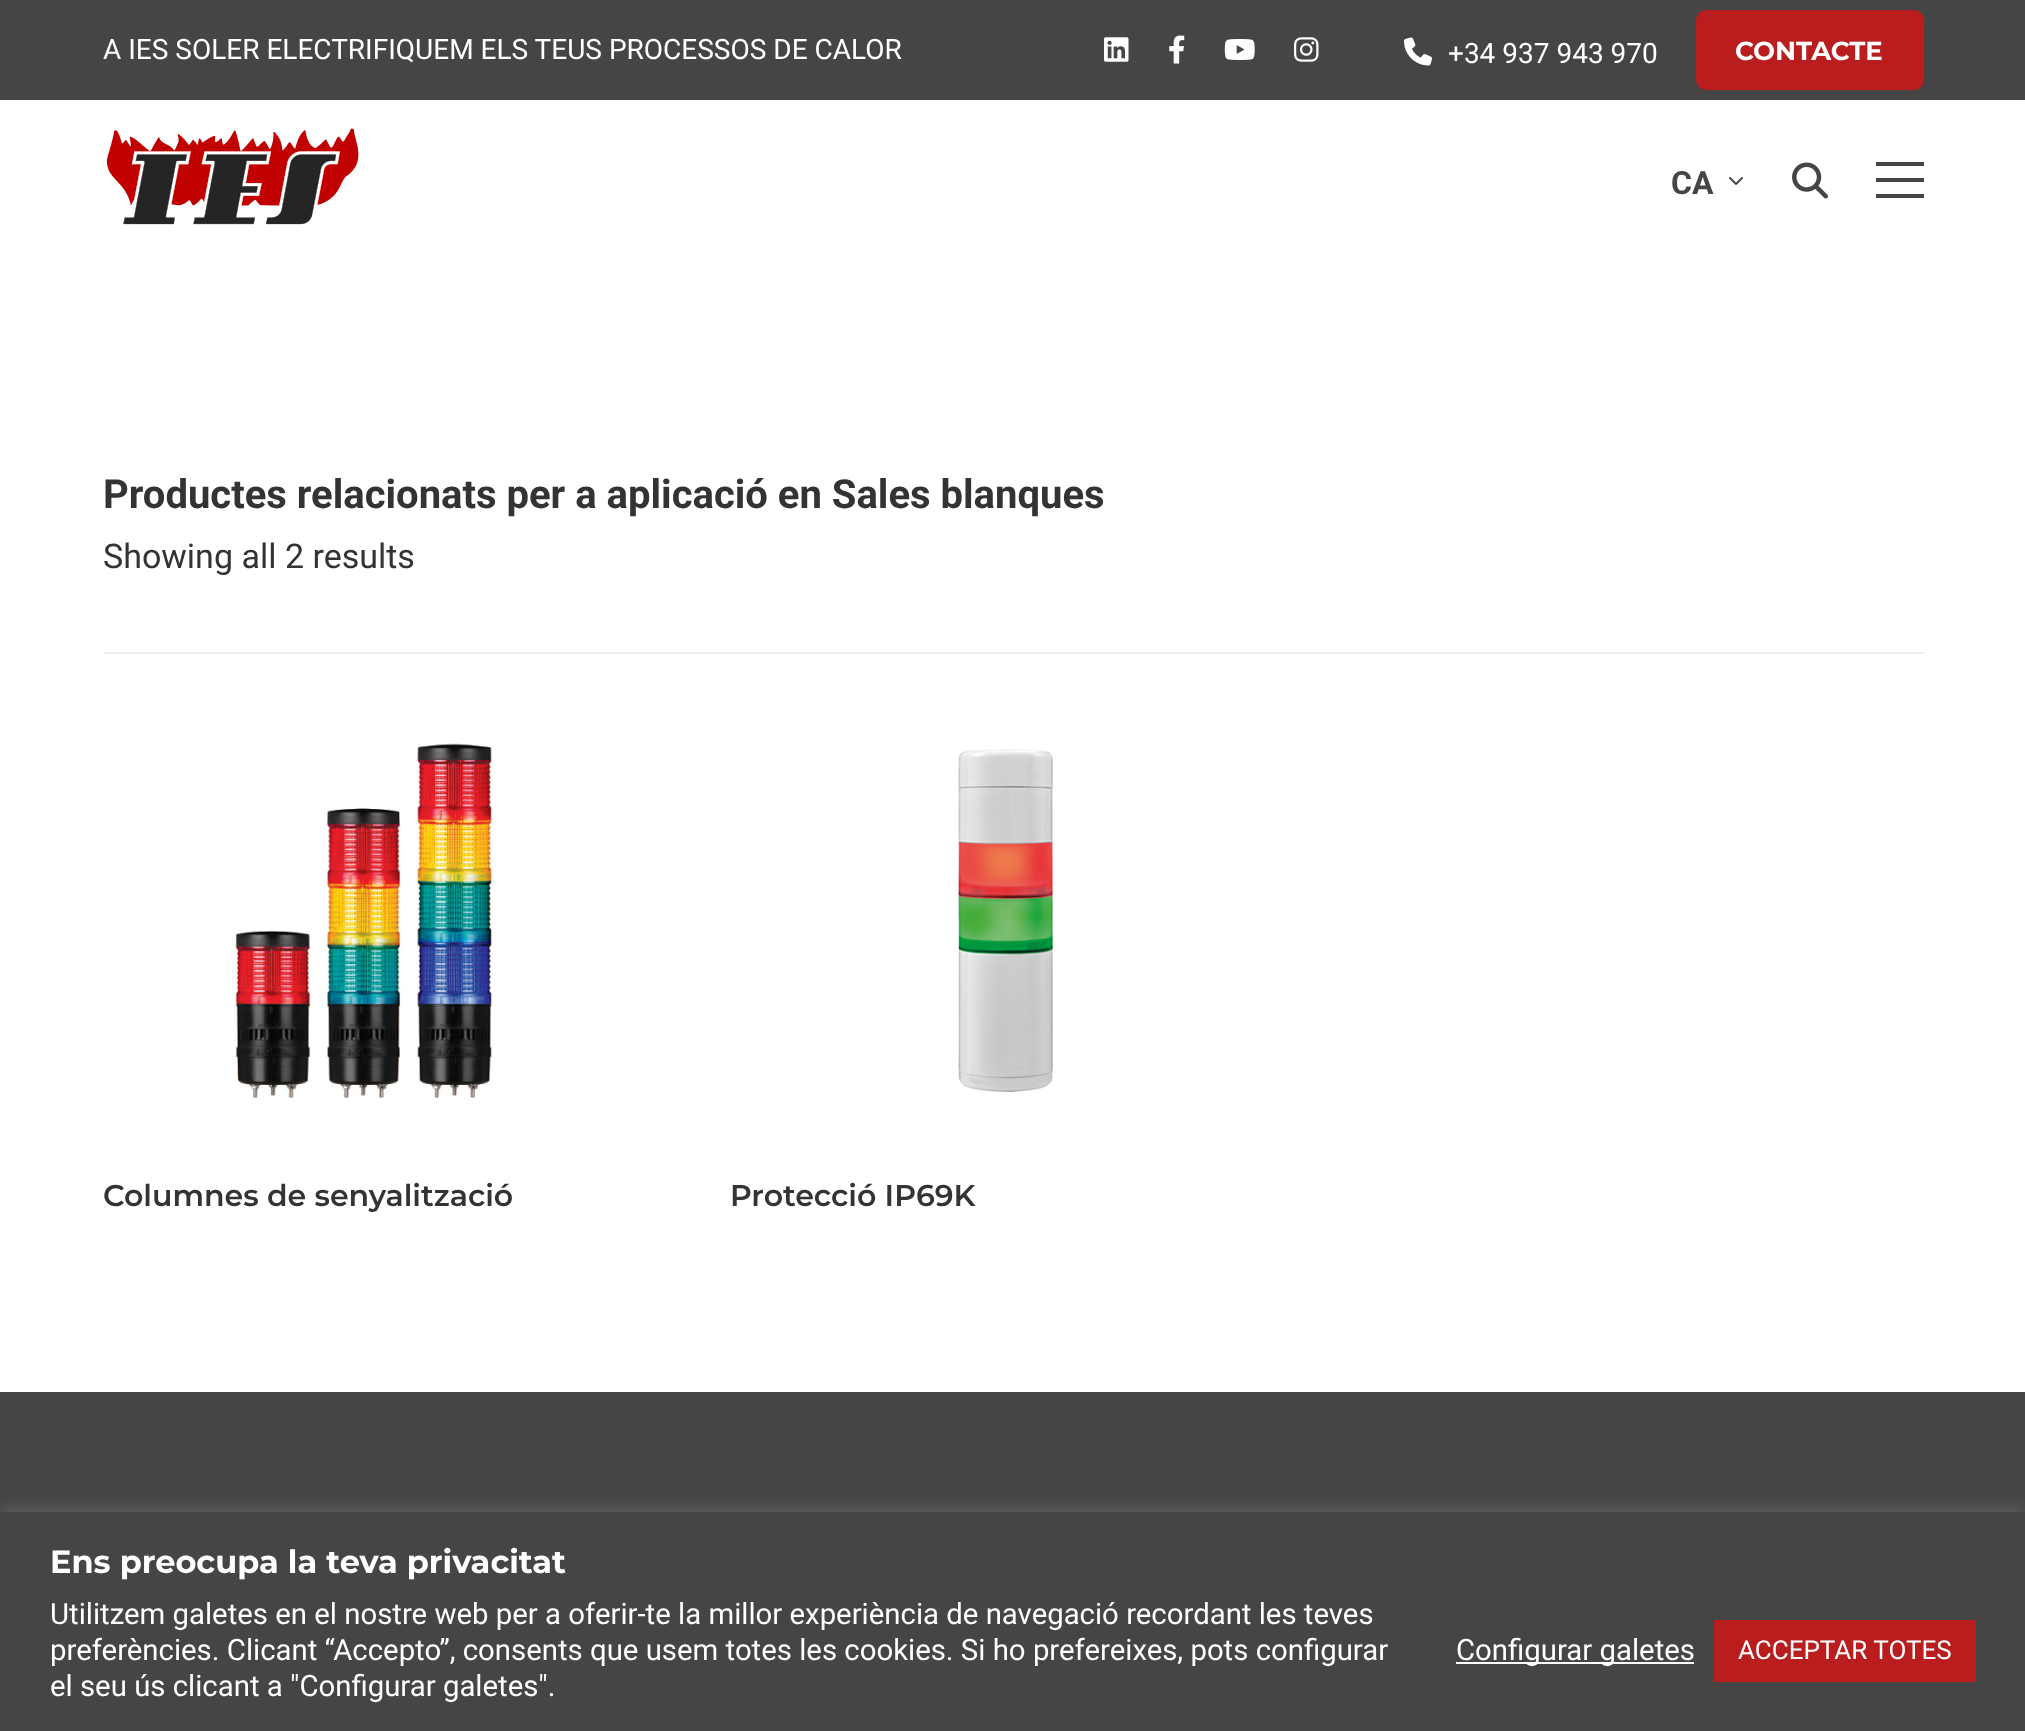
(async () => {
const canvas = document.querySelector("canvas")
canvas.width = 2025
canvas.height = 1731
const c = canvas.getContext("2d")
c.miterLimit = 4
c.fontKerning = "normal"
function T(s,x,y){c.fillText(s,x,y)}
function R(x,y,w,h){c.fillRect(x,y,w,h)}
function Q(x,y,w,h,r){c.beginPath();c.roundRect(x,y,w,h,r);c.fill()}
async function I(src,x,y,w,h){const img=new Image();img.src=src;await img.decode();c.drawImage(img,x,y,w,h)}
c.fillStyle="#fff"
R(0,0,2025,1731)
c.fillStyle="#454545"
R(0,0,2025,100)
c.font="28px Roboto"
c.fillStyle="#fff"
T("A IES SOLER ELECTRIFIQUEM ELS TEUS PROCESSOS DE CALOR",103,59)
await I("1.png",1104,37,25,25)
await I("2.png",1169,35,16,29)
await I("3.png",1224,39,31,21)
await I("4.png",1294,37,25,25)
await I("5.png",1404,37,28,29)
T("+34 937 943 970",1448,63)
c.fillStyle="#b91d1e"
Q(1696,10,228,80,10)
c.font="bold 26px Montserrat"
c.fillStyle="#fff"
T("CONTACTE",1735,60)
await I("6.png",106,128,253,97)
c.font="bold 32px Roboto"
c.fillStyle="#454545"
T("CA",1671,194)
await I("7.png",1729,177,14,8)
await I("8.png",1792,162,36,37)
R(1876,178,48,4)
R(1876,162,48,4)
R(1876,194,48,4)
c.font="bold 40px Roboto"
c.fillStyle="#333"
T("Productes relacionats per a aplicació en Sales blanques",103,508)
c.fillStyle="#ededed"
R(104,652,1820,2)
c.font="34px Roboto"
c.fillStyle="#333"
T("Showing all 2 results",103,568)
await I("9.png",235,743,258,355)
c.font="600 30px Montserrat"
T("Columnes de senyalització",103,1206)
await I("10.png",958,749,99,343)
T("Protecció IP69K",730,1206)
c.fillStyle="#454545"
R(0,1392,2025,120)
c.fillStyle="#acabab4d"
c.filter="blur(10px)"
c.beginPath()
c.rect(0,1510,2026,220)
c.fill()
c.filter="none"
c.fillStyle="#454545"
R(0,1512,2025,219)
c.font="bold 32px Montserrat"
c.fillStyle="#fff"
T("Ens preocupa la teva privacitat",50,1573)
c.font="29.35px Roboto"
T("Utilitzem galetes en el nostre web per a oferir-te la millor experiència de navegació recordant les teves",50,1624)
T("preferències. Clicant “Accepto”, consents que usem totes les cookies. Si ho prefereixes, pots configurar",50,1660)
T("el seu ús clicant a \"Configurar galetes\".",50,1696)
R(1456,1662,238,2)
T("Configurar galetes",1456,1660)
c.fillStyle="#b91d1e"
R(1714,1620,262,62)
c.font="26px Roboto"
c.fillStyle="#fff"
T("ACCEPTAR TOTES",1738,1659)
})()
